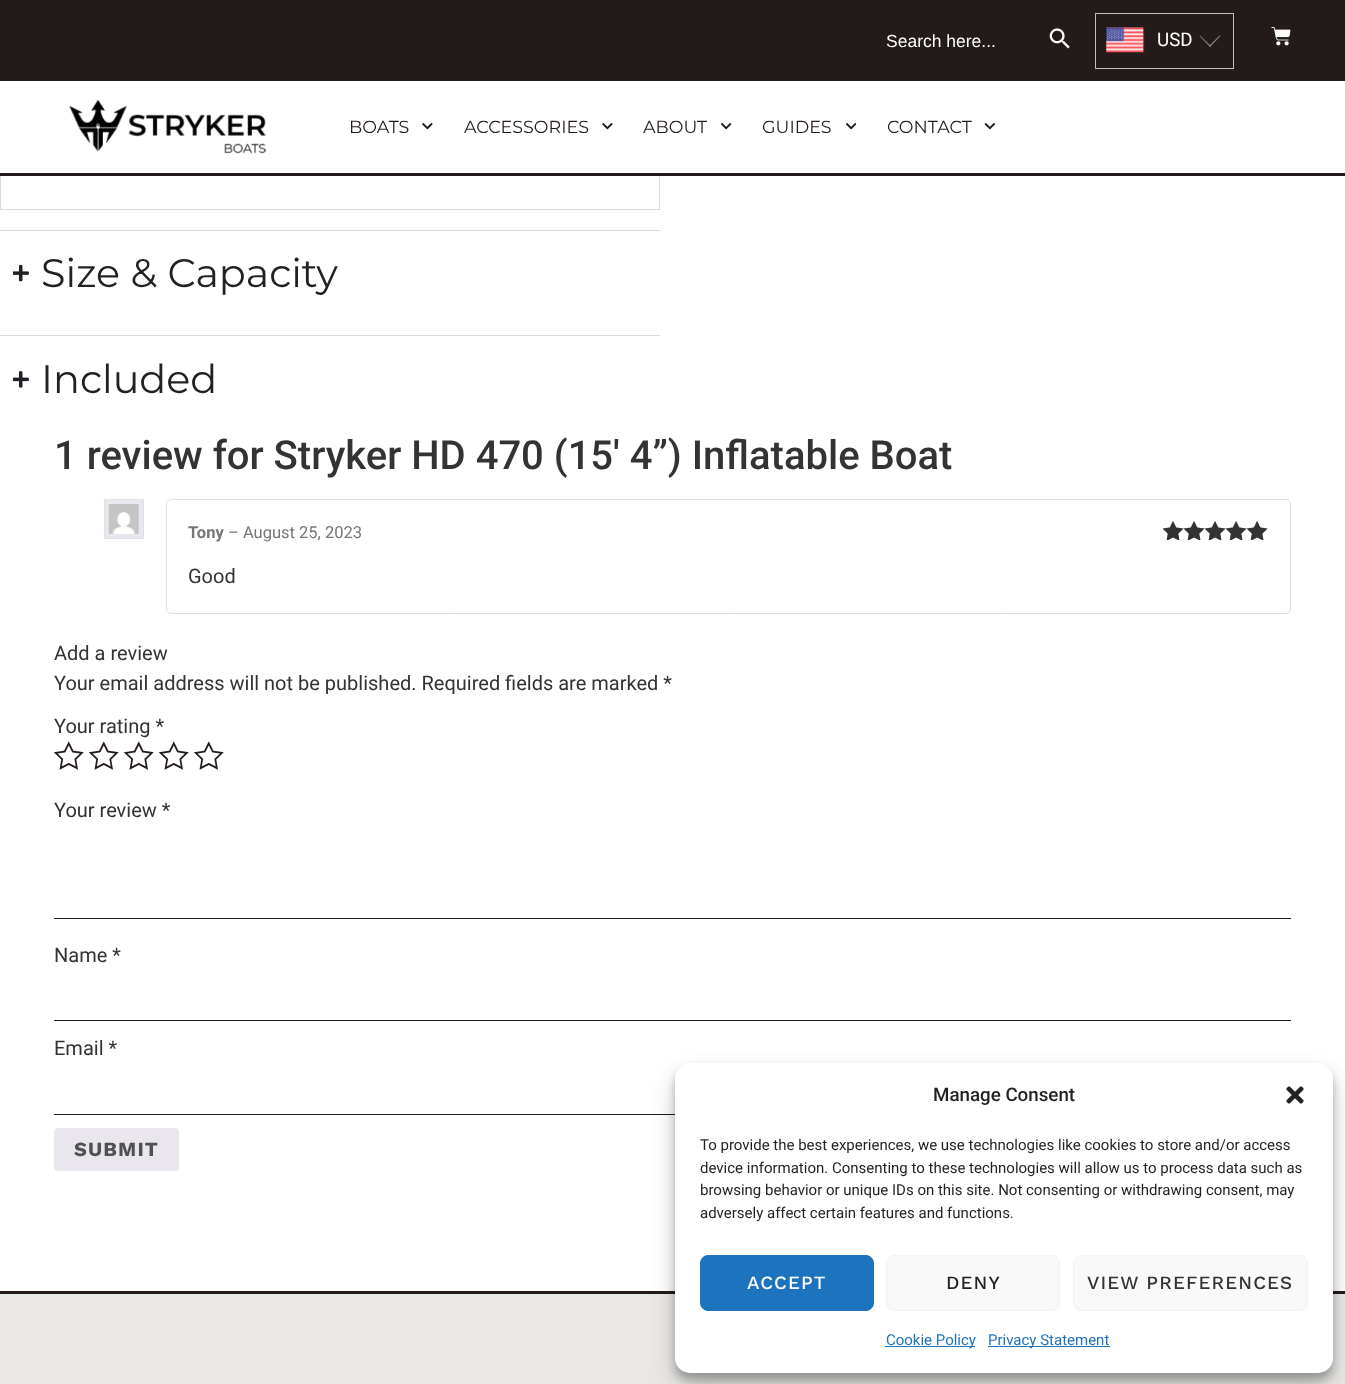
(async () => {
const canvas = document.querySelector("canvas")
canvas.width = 1345
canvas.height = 1384
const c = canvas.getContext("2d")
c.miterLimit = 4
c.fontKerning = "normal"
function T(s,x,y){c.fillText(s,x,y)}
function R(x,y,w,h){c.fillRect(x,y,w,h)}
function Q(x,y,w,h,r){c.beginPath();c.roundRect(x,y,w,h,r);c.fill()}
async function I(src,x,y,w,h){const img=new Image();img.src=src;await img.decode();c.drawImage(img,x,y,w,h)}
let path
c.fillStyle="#fff"
R(0,0,1345,1384)
c.strokeStyle="#d5d8dc"
c.strokeRect(.5,-.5,659,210)
R(0,81,660,92)
c.fillStyle="#221b19"
R(0,0,1345,81)
c.font="17.5px Liberation Sans"
c.fillStyle="#fff"
T("Search here...",886,47)
await I("1.png",1049,28,21,21)
c.strokeStyle="#c0c0c0"
c.strokeRect(1095.5,13.5,138,55)
await I("2.png",1106,27,39,26)
c.font="18.75px Roboto"
T("USD",1157,46)
c.fillStyle="#808080"
path = new Path2D("M1219.5 35.5l1 .5l-10.5 11l-1-1z")
c.fill(path)
path = new Path2D("M1200 35.5l11 10.5l-1 1l-10.5-11z")
c.fill(path)
await I("3.png",1271,27,20,19)
c.fillStyle="#221b19"
R(0,173,1345,3)
await I("4.png",69,99,198,55)
c.font="17.5px Montserrat"
T("BOATS",349,133)
await I("5.png",422,123,11,7)
T("ACCESSORIES",464,133)
await I("5.png",602,123,11,7)
T("ABOUT",643,133)
await I("6.png",721,123,11,7)
T("GUIDES",762,133)
await I("7.png",846,123,10,7)
T("CONTACT",887,133)
await I("8.png",984,123,11,7)
c.fillStyle="#d5d8dc"
R(0,230,660,1)
await I("9.png",13,264,16,18)
c.font="39.75px Montserrat"
c.fillStyle="#1f2124"
T("Size & Capacity",41,287)
c.fillStyle="#d5d8dc"
R(0,335,660,1)
await I("10.png",13,371,16,17)
c.fillStyle="#1f2124"
T("Included",41,393)
c.font="500 40px Roboto"
c.fillStyle="#333"
T("1 review for Stryker HD 470 (15′ 4”) Inflatable Boat",54,469)
c.fillStyle="#e9e6ed"
c.beginPath()
c.rect(104.5,499.5,39,39)
c.fill()
c.strokeStyle="#e1dde7"
c.stroke()
await I("11.png",108,504,31,30)
c.beginPath()
c.roundRect(166.5,499.5,1124,114,4.5)
c.stroke()
c.font="bold 16.5px Roboto"
c.fillStyle="#767676"
T("Tony",188,538)
c.font="16.5px Roboto"
T("– August 25, 2023",228,538)
await I("12.png",1163,521,105,19)
await I("13.png",1163,521,105,19)
c.font="20px Roboto"
c.fillStyle="#333"
T("Good",188,583)
T("Add a review",54,660)
T("Your email address will not be published. Required fields are marked *",54,690)
T("Your rating *",54,733)
await I("14.png",53,741,31,29)
await I("14.png",88,741,31,29)
await I("14.png",123,741,31,29)
await I("14.png",158,741,31,29)
await I("14.png",193,741,31,29)
T("Your review *",54,817)
c.fillStyle="#221b19"
R(54,918,1237,1)
c.fillStyle="#333"
T("Name *",54,962)
c.fillStyle="#221b19"
R(54,1020,1237,1)
c.fillStyle="#333"
T("Email *",54,1055)
c.fillStyle="#221b19"
R(54,1114,621,1)
c.fillStyle="#e9e6ed"
Q(54,1128,125,43,4)
c.letterSpacing="1.1px"
c.font="bold 20px Work Sans"
c.fillStyle="#515151"
T("SUBMIT",74,1156)
c.fillStyle="#e9e8e6"
R(0,1294,1345,90)
c.fillStyle="#221b19"
R(0,1291,1345,3)
c.fillStyle="#0000003b"
c.filter="blur(4px)"
c.beginPath()
c.roundRect(675,1070,658,310,15)
c.fill()
c.filter="none"
c.fillStyle="#00000030"
c.filter="blur(12.5px)"
c.beginPath()
c.roundRect(675,1075,658,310,15)
c.fill()
c.filter="none"
c.fillStyle="#fff"
Q(675,1063,658,310,15)
c.letterSpacing="0px"
c.font="500 18.75px Roboto"
c.fillStyle="#1f2124"
T("Manage Consent",933,1101)
await I("15.png",1286,1086,18,18)
c.font="15px Roboto"
T("To provide the best experiences, we use technologies like cookies to store and/or access",700,1150)
T("device information. Consenting to these technologies will allow us to process data such as",700,1173)
T("browsing behavior or unique IDs on this site. Not consenting or withdrawing consent, may",700,1195)
T("adversely affect certain features and functions.",700,1218)
c.fillStyle="#1e73be"
c.beginPath()
c.roundRect(700.5,1255.5,173,55,7.5)
c.fill()
c.strokeStyle="#1e73be"
c.stroke()
c.letterSpacing="1.1px"
c.font="500 18.75px Work Sans"
c.fillStyle="#fff"
T("ACCEPT",747,1289)
c.fillStyle="#f9f9f9"
c.beginPath()
c.roundRect(886.5,1255.5,173,55,7.5)
c.fill()
c.strokeStyle="#f2f2f2"
c.stroke()
c.fillStyle="#1f2124"
T("DENY",946,1289)
c.fillStyle="#f9f9f9"
c.beginPath()
c.roundRect(1073.5,1255.5,234,55,7.5)
c.fill()
c.stroke()
c.fillStyle="#333"
T("VIEW PREFERENCES",1087,1289)
c.fillStyle="#1e73be"
R(885,1346,90,1)
c.letterSpacing="0px"
c.font="15px Roboto"
T("Cookie Policy",886,1345)
R(988,1346,122,1)
T("Privacy Statement",988,1345)
})()
